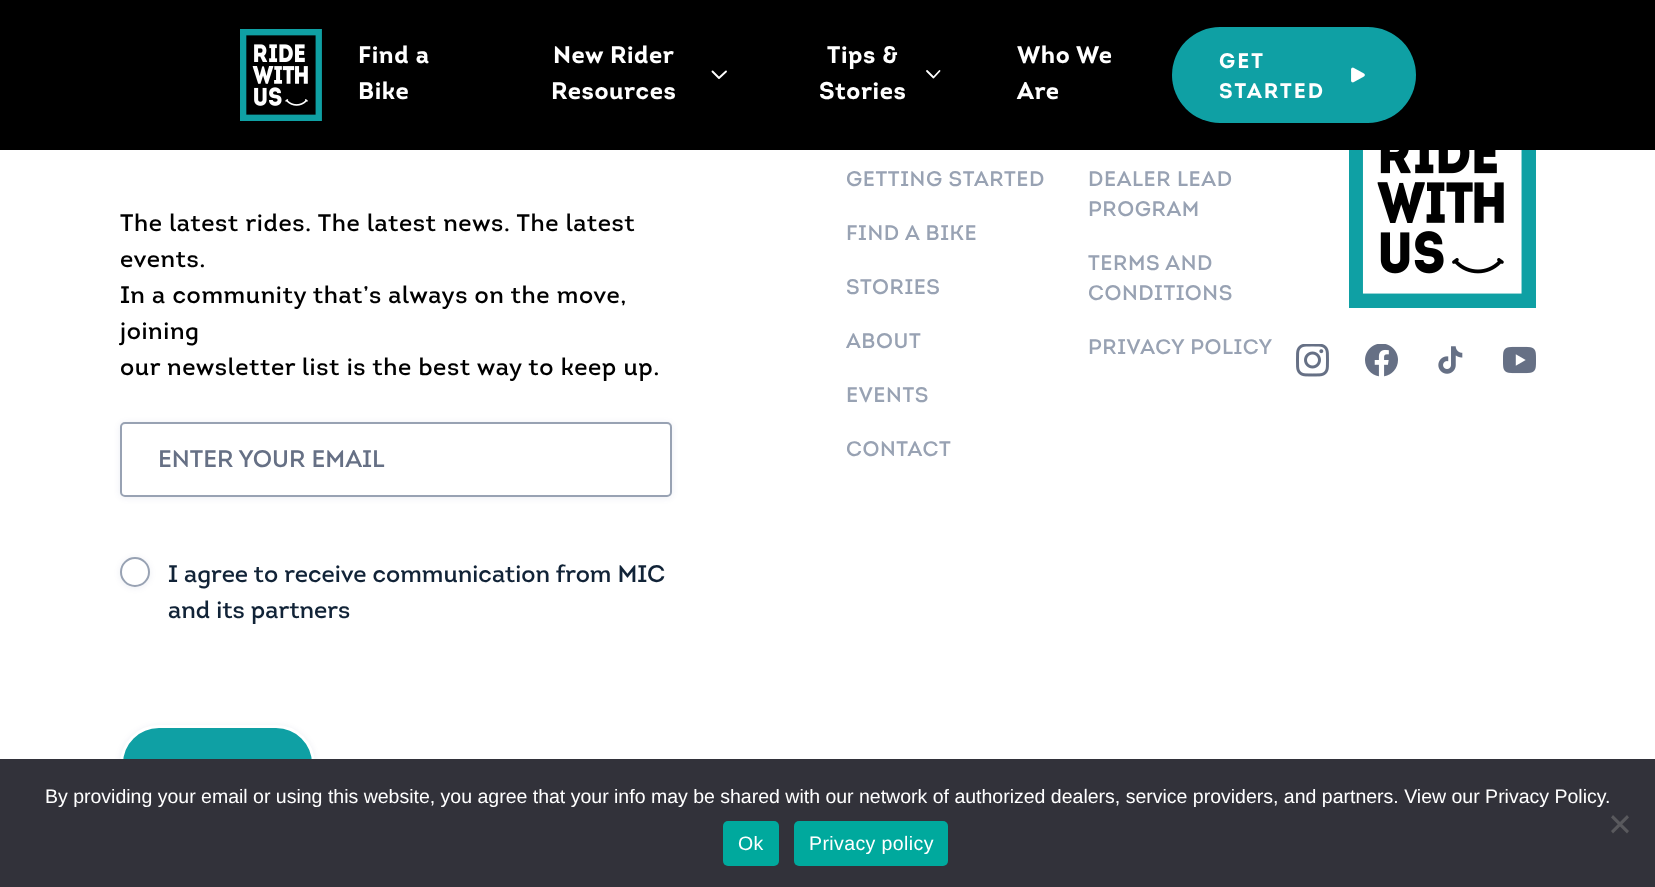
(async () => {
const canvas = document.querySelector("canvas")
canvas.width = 1655
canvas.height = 887
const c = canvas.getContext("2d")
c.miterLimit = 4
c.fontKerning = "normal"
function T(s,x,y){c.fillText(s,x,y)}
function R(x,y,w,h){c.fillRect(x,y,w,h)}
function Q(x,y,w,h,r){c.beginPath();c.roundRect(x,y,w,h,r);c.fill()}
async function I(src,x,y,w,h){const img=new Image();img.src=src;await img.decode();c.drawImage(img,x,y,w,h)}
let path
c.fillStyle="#fff"
R(0,0,1655,887)
c.fillStyle="#000"
R(0,0,1655,150)
await I("1.png",240,29,82,92)
c.letterSpacing="0.6px"
c.font="bold 24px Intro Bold"
c.fillStyle="#fff"
T("Find a",358,63)
T("Bike",358,99)
T("New Rider",553,63)
T("Resources",551,99)
path = new Path2D("M726 71.5l-7 6.5l-6.5-6.5")
c.strokeStyle="#fff"
c.lineWidth=1.9
c.lineCap="round"
c.lineJoin="round"
c.stroke(path)
T("Tips &",827,63)
T("Stories",819,99)
path = new Path2D("M939.5 71l-6 6.5l-6.5-6.5")
c.lineWidth=1.8
c.stroke(path)
T("Who We",1017,63)
T("Are",1017,99)
c.fillStyle="#0fa0a4"
Q(1172,27,244,96,48)
c.letterSpacing="2px"
c.font="bold 21px Intro Bold"
c.fillStyle="#fff"
T("GET",1219,68)
T("STARTED",1219,98)
await I("2.png",1351,67,14,16)
c.letterSpacing="0.6px"
c.font="24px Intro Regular"
c.fillStyle="#000"
T("The latest rides. The latest news. The latest",120,231)
T("events.",120,267)
T("In a community that’s always on the move,",120,303)
T("joining",120,339)
T("our newsletter list is the best way to keep up.",120,375)
c.fillStyle="#12196114"
c.filter="blur(3px)"
c.beginPath()
c.roundRect(120,423,552,75,5)
c.fill()
c.filter="none"
c.fillStyle="#fff"
c.beginPath()
c.roundRect(121,423,550,73,4)
c.fill()
c.strokeStyle="#98a2b3"
c.lineWidth=2
c.lineJoin="miter"
c.stroke()
c.letterSpacing="0px"
c.fillStyle="#667085"
T("ENTER YOUR EMAIL",158,467)
c.fillStyle="#12196114"
c.filter="blur(3px)"
c.beginPath()
c.roundRect(120,558,30,30,15)
c.fill()
c.filter="none"
c.fillStyle="#fff"
c.beginPath()
c.arc(135,572,14,0,7)
c.fill()
c.stroke()
c.fillStyle="#112337"
T("I agree to receive communication from MIC",168,582)
T("and its partners",168,618)
c.fillStyle="#12196114"
c.filter="blur(3px)"
c.beginPath()
c.roundRect(120,726,195,78,39)
c.fill()
c.filter="none"
c.fillStyle="#0fa0a4"
c.beginPath()
c.roundRect(121.5,726.5,192,75,37.5)
c.fill()
c.strokeStyle="#fff"
c.lineWidth=3
c.stroke()
c.letterSpacing="0.6px"
c.font="21px Intro Regular"
c.fillStyle="#98a2b3"
T("GETTING STARTED",846,186)
T("FIND A BIKE",846,240)
T("STORIES",846,294)
T("ABOUT",846,348)
T("EVENTS",846,402)
T("CONTACT",846,456)
T("DEALER LEAD",1088,186)
T("PROGRAM",1088,216)
T("TERMS AND",1088,270)
T("CONDITIONS",1088,300)
T("PRIVACY POLICY",1088,354)
await I("3.png",1349,150,187,158)
await I("4.png",1296,344,33,33)
await I("5.png",1365,344,33,33)
await I("6.png",1438,346,25,28)
await I("7.png",1503,346,33,28)
c.fillStyle="#32323a"
R(0,759,1655,128)
c.letterSpacing="0px"
c.font="19.5px Liberation Sans"
c.fillStyle="#fff"
T("By providing your email or using this website, you agree that your info may be shared with our network of authorized dealers, service providers, and partners. View our Privacy Policy.",45,803)
c.fillStyle="#59595d"
path = new Path2D("M1627 815l2 2.5l-16 16l-2-2.5z")
c.fill(path)
path = new Path2D("M1611 817.5l2-2.5l16 16l-2 2.5z")
c.fill(path)
c.fillStyle="#00a99d"
Q(723,821,56,45,5)
c.letterSpacing="0.4px"
c.fillStyle="#fff"
T("Ok",738,850)
c.fillStyle="#00a99d"
Q(794,821,154,45,5)
c.fillStyle="#fff"
T("Privacy policy",809,850)
})()
